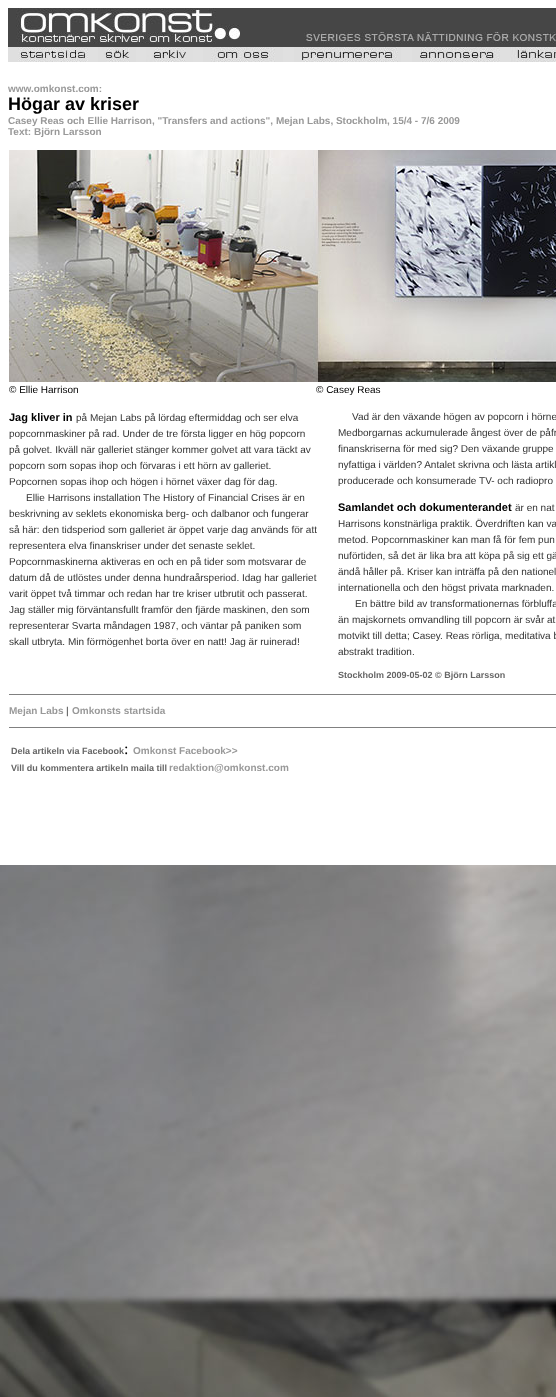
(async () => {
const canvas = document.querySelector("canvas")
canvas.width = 556
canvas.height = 1397
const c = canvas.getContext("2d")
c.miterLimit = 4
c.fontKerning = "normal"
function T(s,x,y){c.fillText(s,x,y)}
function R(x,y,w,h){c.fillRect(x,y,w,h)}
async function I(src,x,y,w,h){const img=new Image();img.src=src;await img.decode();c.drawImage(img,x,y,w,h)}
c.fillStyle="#fff"
R(0,0,556,1397)
await I("1.png",0,865,556,532)
await I("2.png",8,8,548,36)
c.fillStyle="#464646"
R(8,44,548,3)
c.fillStyle="#e0e0e0"
R(8,47,2,15)
await I("3.png",10,47,78,15)
R(88,47,10,15)
await I("4.png",98,47,38,15)
R(136,47,10,15)
await I("5.png",146,47,47,15)
R(193,47,10,15)
await I("6.png",203,47,80,15)
R(283,47,11,15)
await I("7.png",294,47,107,15)
R(401,47,11,15)
await I("8.png",412,47,88,15)
R(500,47,10,15)
await I("9.png",510,47,46,15)
c.font="bold 10px Liberation Sans"
c.fillStyle="#999"
T("www.omkonst.com:",8,92)
c.font="bold 18px Liberation Sans"
c.fillStyle="#000"
T("Högar av kriser",8,110)
c.font="bold 10px Liberation Sans"
c.fillStyle="#999"
T("Casey Reas och Ellie Harrison, \"Transfers and actions\", Mejan Labs, Stockholm, 15/4 - 7/6 2009",8,124)
T("Text: Björn Larsson",8,135)
await I("10.png",9,150,547,232)
c.font="10px Liberation Sans"
c.fillStyle="#000"
T("© Ellie Harrison",9,393)
T("© Casey Reas",316,393)
c.font="bold 11px Liberation Sans"
T("Jag kliver in",9,421)
c.font="10px Liberation Sans"
c.fillStyle="#333"
T("på Mejan Labs på lördag eftermiddag och ser elva",76,421)
T("popcornmaskiner på rad. Under de tre första ligger en hög popcorn",9,437)
T("på golvet. Ikväll när galleriet stänger kommer golvet att vara täckt av",9,453)
T("popcorn som sopas ihop och förvaras i ett hörn av galleriet.",9,469)
T("Popcornen sopas ihop och högen i hörnet växer dag för dag.",9,485)
T("Ellie Harrisons installation The History of Financial Crises är en",26,501)
T("beskrivning av seklets ekonomiska berg- och dalbanor och fungerar",9,517)
T("så här: den tidsperiod som galleriet är öppet varje dag används för att",9,533)
T("representera elva finanskriser under det senaste seklet.",9,549)
T("Popcornmaskinerna aktiveras en och en på tider som motsvarar de",9,565)
T("datum då de utlöstes under denna hundraårsperiod. Idag har galleriet",9,581)
T("varit öppet två timmar och redan har tre kriser utbrutit och passerat.",9,597)
T("Jag ställer mig förväntansfullt framför den fjärde maskinen, den som",9,613)
T("representerar Svarta måndagen 1987, och väntar på paniken som",9,629)
T("skall utbryta. Min förmögenhet borta över en natt! Jag är ruinerad!",9,645)
T("Vad är den växande högen av popcorn i hörne",352,420)
T("Medborgarnas ackumulerade ångest över de påfr",338,436)
T("finanskriserna för med sig? Den växande gruppe",338,452)
T("nyfattiga i världen? Antalet skrivna och lästa artikl",338,468)
T("producerade och konsumerade TV- och radiopro",338,484)
c.font="bold 11px Liberation Sans"
c.fillStyle="#000"
T("Samlandet och dokumenterandet",338,511)
c.font="10px Liberation Sans"
c.fillStyle="#333"
T("är en nat",515,511)
T("Harrisons konstnärliga praktik. Överdriften kan va",338,527)
T("metod. Popcornmaskiner kan man få för fem pun",338,543)
T("nuförtiden, så det är lika bra att köpa på sig ett gä",338,559)
T("ändå håller på. Kriser kan inträffa på den nationel",338,575)
T("internationella och den högst privata marknaden.",338,591)
T("En bättre bild av transformationernas förbluffa",355,607)
T("än majskornets omvandling till popcorn är svår at",338,623)
T("motvikt till detta; Casey. Reas rörliga, meditativa b",338,639)
T("abstrakt tradition.",338,655)
c.font="bold 9px Liberation Sans"
c.fillStyle="#666"
T("Stockholm 2009-05-02 © Björn Larsson",338,678)
c.fillStyle="#808080"
R(9,694,547,1)
c.font="bold 10px Liberation Sans"
c.fillStyle="#999"
T("Mejan Labs",9,714)
c.font="10px Liberation Sans"
c.fillStyle="#333"
T("|",66,714)
c.font="bold 10px Liberation Sans"
c.fillStyle="#999"
T("Omkonsts startsida",72,714)
c.fillStyle="#808080"
R(9,727,547,1)
c.font="bold 9px Liberation Sans"
c.fillStyle="#666"
T("Dela artikeln via Facebook",11,754)
c.font="16px Liberation Serif"
c.fillStyle="#000"
T(":",124,754)
c.font="bold 10px Liberation Sans"
c.fillStyle="#999"
T("Omkonst Facebook>>",133,754)
c.font="bold 9px Liberation Sans"
c.fillStyle="#666"
T("Vill du kommentera artikeln maila till",11,771)
c.font="bold 10px Liberation Sans"
c.fillStyle="#999"
T("redaktion@omkonst.com",169,771)
})()
